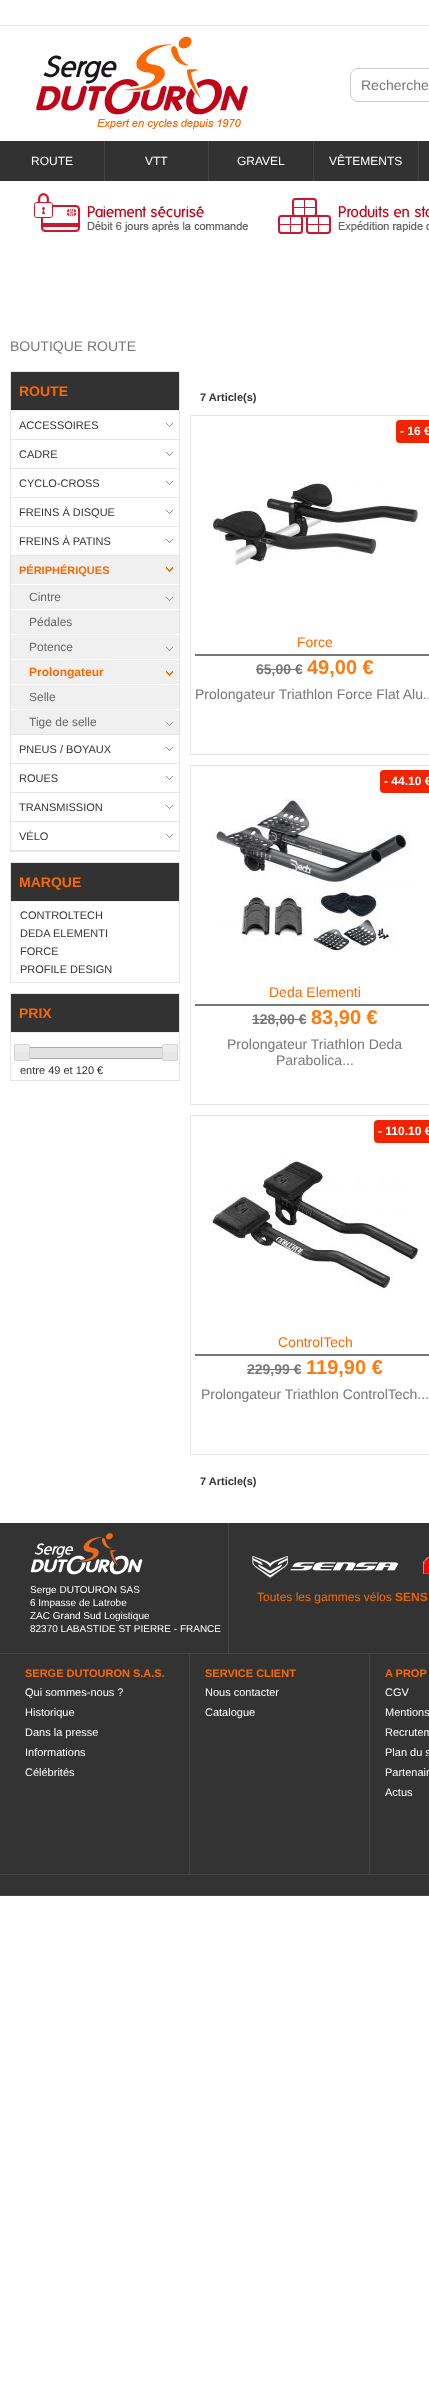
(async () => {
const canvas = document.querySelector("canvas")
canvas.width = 429
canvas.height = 2399
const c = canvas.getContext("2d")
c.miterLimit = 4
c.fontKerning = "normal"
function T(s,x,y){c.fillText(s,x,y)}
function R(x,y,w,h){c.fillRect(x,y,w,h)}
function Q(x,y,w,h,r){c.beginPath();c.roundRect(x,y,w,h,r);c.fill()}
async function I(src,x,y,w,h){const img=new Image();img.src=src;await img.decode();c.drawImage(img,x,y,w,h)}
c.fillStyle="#fff"
R(0,0,429,2399)
c.fillStyle="#e6e6e6"
R(0,25,429,1)
await I("1.png",36,36,212,93)
c.beginPath()
c.roundRect(350.5,68.5,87,33,7.5)
c.strokeStyle="#ccc"
c.stroke()
c.font="14px Liberation Sans"
c.fillStyle="#787878"
T("Recherche",361,90)
c.fillStyle="#323232"
R(0,141,429,40)
c.fillStyle="#444"
R(104,141,1,40)
c.font="12px Liberation Sans"
c.fillStyle="#fff"
T("ROUTE",31,165)
c.fillStyle="#444"
R(208,141,1,40)
c.fillStyle="#fff"
T("VTT",145,165)
c.fillStyle="#444"
R(313,141,1,40)
c.fillStyle="#fff"
T("GRAVEL",237,165)
c.fillStyle="#444"
R(418,141,1,40)
c.fillStyle="#fff"
T("VÊTEMENTS",329,165)
await I("2.png",34,193,214,39)
await I("3.png",278,198,151,36)
c.font="14px Liberation Sans"
c.fillStyle="#787878"
T("BOUTIQUE ROUTE",10,351)
c.strokeStyle="#e6e6e6"
c.strokeRect(10.5,371.5,169,480)
c.fillStyle="#323232"
R(11,372,168,38)
c.fillStyle="#eee"
R(11,410,168,1)
c.font="bold 14px Liberation Sans"
c.fillStyle="#fb6904"
T("ROUTE",19,396)
c.fillStyle="#e6e6e6"
R(11,439,168,1)
await I("4.png",166,423,7,4)
c.font="11px Liberation Sans"
c.fillStyle="#333"
T("ACCESSOIRES",19,429)
c.fillStyle="#e6e6e6"
R(11,468,168,1)
await I("4.png",166,452,7,4)
c.fillStyle="#333"
T("CADRE",19,458)
c.fillStyle="#e6e6e6"
R(11,497,168,1)
await I("4.png",166,481,7,4)
c.fillStyle="#333"
T("CYCLO-CROSS",19,487)
c.fillStyle="#e6e6e6"
R(11,526,168,1)
await I("4.png",166,510,7,4)
c.fillStyle="#333"
T("FREINS À DISQUE",19,516)
c.fillStyle="#e6e6e6"
R(11,555,168,1)
await I("4.png",166,539,7,4)
c.fillStyle="#333"
T("FREINS À PATINS",19,545)
c.fillStyle="#e6e6e6"
R(11,734,168,1)
c.fillStyle="#f0f0f0"
R(11,556,168,28)
await I("5.png",166,567,7,5)
c.font="bold 11px Liberation Sans"
c.fillStyle="#fb6904"
T("PÉRIPHÉRIQUES",19,574)
c.fillStyle="#f0f0f0"
R(11,585,168,149)
c.fillStyle="#fff"
R(11,609,168,1)
await I("6.png",166,597,7,4)
c.font="12px Liberation Sans"
c.fillStyle="#666"
T("Cintre",29,601)
c.fillStyle="#fff"
R(11,634,168,1)
c.fillStyle="#666"
T("Pédales",29,626)
c.fillStyle="#fff"
R(11,659,168,1)
await I("6.png",166,647,7,4)
c.fillStyle="#666"
T("Potence",29,651)
c.fillStyle="#fff"
R(11,684,168,1)
await I("5.png",166,671,7,5)
c.font="bold 12px Liberation Sans"
c.fillStyle="#fb6904"
T("Prolongateur",29,676)
c.fillStyle="#fff"
R(11,709,168,1)
c.font="12px Liberation Sans"
c.fillStyle="#666"
T("Selle",29,701)
await I("6.png",166,722,7,4)
T("Tige de selle",29,726)
c.fillStyle="#e6e6e6"
R(11,763,168,1)
await I("4.png",166,747,7,4)
c.font="11px Liberation Sans"
c.fillStyle="#333"
T("PNEUS / BOYAUX",19,753)
c.fillStyle="#e6e6e6"
R(11,792,168,1)
await I("4.png",166,776,7,4)
c.fillStyle="#333"
T("ROUES",19,782)
c.fillStyle="#e6e6e6"
R(11,821,168,1)
await I("4.png",166,805,7,4)
c.fillStyle="#333"
T("TRANSMISSION",19,811)
c.fillStyle="#e6e6e6"
R(11,850,168,1)
await I("4.png",166,834,7,4)
c.fillStyle="#333"
T("VÉLO",19,840)
c.strokeRect(10.5,862.5,169,120)
c.fillStyle="#323232"
R(11,863,168,38)
c.fillStyle="#eee"
R(11,901,168,1)
c.font="bold 14px Liberation Sans"
c.fillStyle="#fb6904"
T("MARQUE",19,887)
c.font="11px Liberation Sans"
c.fillStyle="#333"
T("CONTROLTECH",20,919)
T("DEDA ELEMENTI",20,937)
T("FORCE",20,955)
T("PROFILE DESIGN",20,973)
c.strokeRect(10.5,993.5,169,87)
c.fillStyle="#323232"
R(11,994,168,38)
c.fillStyle="#eee"
R(11,1032,168,1)
c.font="bold 14px Liberation Sans"
c.fillStyle="#fb6904"
T("PRIX",19,1018)
c.strokeStyle="#aaa"
c.strokeRect(20.5,1047.5,149,11)
await I("7.png",14,1044,16,17)
c.beginPath()
c.roundRect(14.5,1044.5,15,16,1.5)
c.strokeStyle="#d3d3d3"
c.stroke()
c.fillStyle="#e2e2e2"
R(30,1048,132,10)
await I("7.png",162,1044,16,17)
c.beginPath()
c.roundRect(162.5,1044.5,15,16,1.5)
c.stroke()
c.font="11px Liberation Sans"
c.fillStyle="#333"
T("entre 49 et 120 €",20,1074)
c.font="bold 11px Liberation Sans"
T("7 Article(s)",200,401)
c.strokeStyle="#e6e6e6"
c.strokeRect(190.5,415.5,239,339)
c.fillStyle="#f02400"
Q(396,420,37,23,4)
c.font="bold 12px Liberation Sans"
c.fillStyle="#fff"
T("- 16 €",400,435)
await I("8.png",210,482,208,84)
c.fillStyle="#787878"
R(195,654,234,2)
c.font="14px Liberation Sans"
c.fillStyle="#fb6904"
T("Force",297,647)
c.font="bold 14px Liberation Sans"
c.fillStyle="#787878"
T("65,00 €",256,674)
R(256,669,46,1)
c.font="bold 20px Liberation Sans"
c.fillStyle="#fe7c12"
T("49,00 €",307,674)
c.font="14px Liberation Sans"
c.fillStyle="#787878"
T("Prolongateur Triathlon Force Flat Alu..",195,699)
c.strokeRect(190.5,765.5,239,339)
c.fillStyle="#f02400"
Q(380,770,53,23,4)
c.font="bold 12px Liberation Sans"
c.fillStyle="#fff"
T("- 44.10 €",384,785)
await I("9.png",210,798,200,154)
c.fillStyle="#787878"
R(195,1004,234,2)
c.font="14px Liberation Sans"
c.fillStyle="#fb6904"
T("Deda Elementi",269,997)
c.font="bold 14px Liberation Sans"
c.fillStyle="#787878"
T("128,00 €",252,1024)
R(252,1019,54,1)
c.font="bold 20px Liberation Sans"
c.fillStyle="#fe7c12"
T("83,90 €",311,1024)
c.font="14px Liberation Sans"
c.fillStyle="#787878"
T("Prolongateur Triathlon Deda",227,1049)
T("Parabolica...",276,1065)
c.strokeRect(190.5,1115.5,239,339)
c.fillStyle="#f02400"
Q(374,1120,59,23,4)
c.font="bold 12px Liberation Sans"
c.fillStyle="#fff"
T("- 110.10 €",378,1135)
await I("10.png",210,1159,208,131)
c.fillStyle="#787878"
R(195,1354,234,2)
c.font="14px Liberation Sans"
c.fillStyle="#fb6904"
T("ControlTech",278,1347)
c.font="bold 14px Liberation Sans"
c.fillStyle="#787878"
T("229,99 €",247,1374)
R(247,1369,54,1)
c.font="bold 20px Liberation Sans"
c.fillStyle="#fe7c12"
T("119,90 €",306,1374)
c.font="14px Liberation Sans"
c.fillStyle="#787878"
T("Prolongateur Triathlon ControlTech...",201,1399)
c.font="bold 11px Liberation Sans"
c.fillStyle="#333"
T("7 Article(s)",200,1485)
R(0,1523,429,372)
c.fillStyle="#444"
R(0,1653,429,1)
R(228,1523,1,130)
await I("11.png",30,1533,113,42)
c.font="10px Liberation Sans"
c.fillStyle="#fff"
T("Serge DUTOURON SAS",30,1593)
T("6 Impasse de Latrobe",30,1606)
T("ZAC Grand Sud Logistique",30,1619)
T("82370 LABASTIDE ST PIERRE - FRANCE",30,1632)
await I("12.png",252,1556,146,22)
await I("13.png",423,1557,6,17)
c.font="12px Liberation Sans"
c.fillStyle="#fb6904"
T("Toutes les gammes vélos",257,1601)
c.font="bold 12px Liberation Sans"
c.fillStyle="#ec6003"
T("SENS",395,1601)
c.font="bold 11px Liberation Sans"
c.fillStyle="#fb6904"
T("SERGE DUTOURON S.A.S.",25,1677)
c.font="11px Liberation Sans"
c.fillStyle="#fff"
T("Qui sommes-nous ?",25,1696)
T("Historique",25,1716)
T("Dans la presse",25,1736)
T("Informations",25,1756)
T("Célébrités",25,1776)
c.fillStyle="#444"
R(189,1654,1,220)
c.font="bold 11px Liberation Sans"
c.fillStyle="#fb6904"
T("SERVICE CLIENT",205,1677)
c.font="11px Liberation Sans"
c.fillStyle="#fff"
T("Nous contacter",205,1696)
T("Catalogue",205,1716)
c.fillStyle="#444"
R(369,1654,1,220)
c.font="bold 11px Liberation Sans"
c.fillStyle="#fb6904"
T("A PROP",385,1677)
c.font="11px Liberation Sans"
c.fillStyle="#fff"
T("CGV",385,1696)
T("Mentions",385,1716)
T("Recrutem",385,1736)
T("Plan du s",385,1756)
T("Partenair",385,1776)
T("Actus",385,1796)
c.fillStyle="#444"
R(0,1874,429,1)
R(0,1895,429,1)
})()
